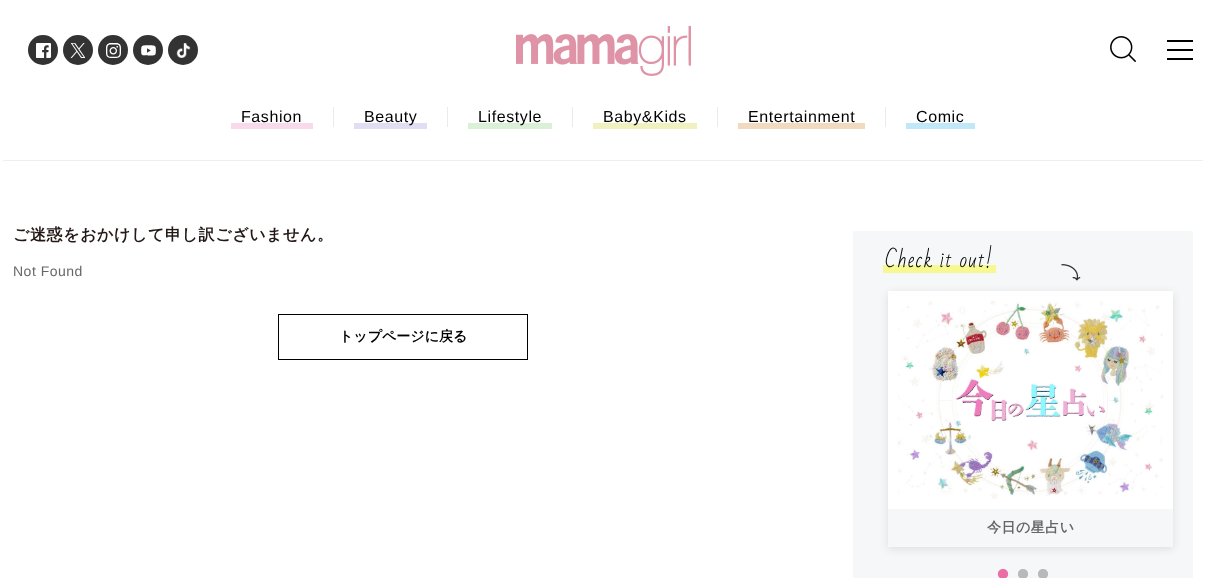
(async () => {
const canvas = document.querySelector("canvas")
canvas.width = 1206
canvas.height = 578
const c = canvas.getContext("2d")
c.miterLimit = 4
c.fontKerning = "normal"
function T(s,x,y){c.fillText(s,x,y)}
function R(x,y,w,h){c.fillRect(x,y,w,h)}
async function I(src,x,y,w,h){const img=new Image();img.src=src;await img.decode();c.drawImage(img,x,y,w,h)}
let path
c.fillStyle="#fff"
R(0,0,1206,578)
await I("1.png",516,26,175,50)
c.fillStyle="#333"
c.beginPath()
c.arc(43,50,15,0,7)
c.fill()
await I("2.png",36,43,15,15)
c.beginPath()
c.arc(78,50,15,0,7)
c.fill()
await I("3.png",70,43,15,15)
c.beginPath()
c.arc(113,50,15,0,7)
c.fill()
await I("4.png",106,43,15,15)
c.beginPath()
c.arc(148,50,15,0,7)
c.fill()
await I("5.png",141,45,15,11)
c.beginPath()
c.arc(183,50,15,0,7)
c.fill()
await I("6.png",176,43,15,15)
await I("7.png",1110,36,26,26)
c.fillStyle="#000"
R(1167,40,26,2)
R(1167,49,26,2)
R(1167,58,26,2)
c.letterSpacing="0.6px"
c.font="16px Liberation Sans"
T("Fashion",241,122)
c.fillStyle="#f8daeb"
R(231,123,82,6)
c.fillStyle="#ebebeb"
R(333,107,1,20)
c.fillStyle="#e1def4"
R(354,123,73,6)
c.fillStyle="#000"
T("Beauty",364,122)
c.fillStyle="#ebebeb"
R(447,107,1,20)
c.fillStyle="#daf1d8"
R(468,123,84,6)
c.fillStyle="#000"
T("Lifestyle",478,122)
c.fillStyle="#ebebeb"
R(572,107,1,20)
c.fillStyle="#f1f1c0"
R(593,123,104,6)
c.fillStyle="#000"
T("Baby&Kids",603,122)
c.fillStyle="#ebebeb"
R(717,107,1,20)
c.fillStyle="#000"
T("Entertainment",748,122)
c.fillStyle="#f1dac0"
R(738,123,127,6)
c.fillStyle="#ebebeb"
R(885,107,1,20)
c.fillStyle="#000"
T("Comic",916,122)
c.fillStyle="#c0e8f9"
R(906,123,69,6)
c.fillStyle="#eee"
R(3,160,1200,1)
c.font="bold 16px WenQuanYi Zen Hei"
c.fillStyle="#231815"
T("ご迷惑をおかけして申し訳ございません。",13,240)
c.letterSpacing="0.5px"
c.font="14px Liberation Sans"
c.fillStyle="#666"
T("Not Found",13,276)
c.strokeStyle="#000"
c.strokeRect(278.5,314.5,249,45)
c.letterSpacing="0px"
c.font="bold 14px WenQuanYi Zen Hei"
c.fillStyle="#000"
T("トップページに戻る",339,341)
c.fillStyle="#f5f7f9"
R(853,231,340,347)
c.fillStyle="#f8f892"
R(883,265,113,8)
c.letterSpacing="1.25px"
c.font="20px Bad Script"
c.fillStyle="#000"
T("Check it out!",885,267)
await I("8.png",1061,264,20,17)
c.save()
path = new Path2D("M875 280h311v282h-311zm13 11h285v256h-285z")
c.clip(path,"evenodd")
c.fillStyle="#0000001a"
c.filter="blur(4px)"
c.beginPath()
c.rect(888,293,285,256)
c.fill()
c.filter="none"
c.restore()
c.fillStyle="#fff"
R(888,291,285,218)
await I("9.png",898,301,265,198)
c.letterSpacing="0.5px"
c.font="bold 14px WenQuanYi Zen Hei"
c.fillStyle="#666"
T("今日の星占い",987,532)
await I("10.png",997,568,12,10)
await I("11.png",1018,569,10,9)
await I("11.png",1038,569,10,9)
})()
